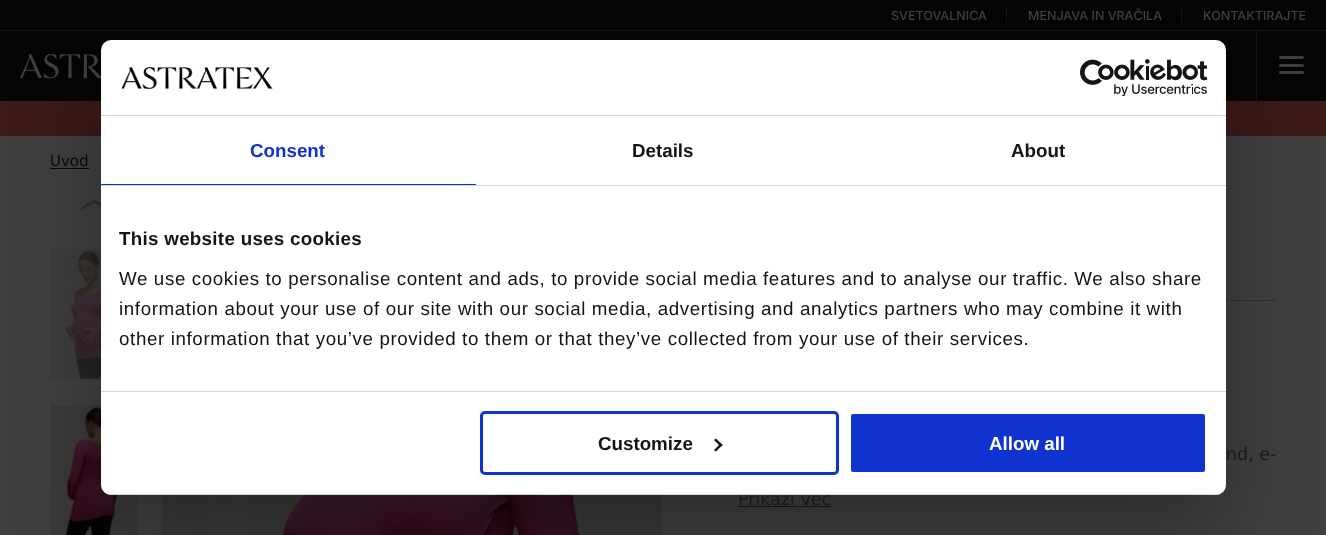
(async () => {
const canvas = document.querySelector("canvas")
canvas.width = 1326
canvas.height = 535
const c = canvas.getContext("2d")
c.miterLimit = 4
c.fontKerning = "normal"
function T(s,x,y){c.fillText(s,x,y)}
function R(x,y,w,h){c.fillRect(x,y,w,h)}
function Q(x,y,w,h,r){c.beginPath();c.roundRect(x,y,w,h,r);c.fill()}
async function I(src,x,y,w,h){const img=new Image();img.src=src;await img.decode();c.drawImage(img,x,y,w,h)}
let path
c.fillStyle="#404040"
R(0,0,1326,535)
c.fillStyle="#050505"
R(0,0,1326,101)
c.fillStyle="#151515"
R(0,30,1326,1)
c.font="500 12.5px Inter"
c.fillStyle="#404040"
T("SVETOVALNICA",891,20)
T("MENJAVA IN VRAČILA",1028,20)
c.fillStyle="#151515"
R(1006,8,1,15)
c.fillStyle="#404040"
T("KONTAKTIRAJTE",1203,20)
c.fillStyle="#151515"
R(1181,8,1,15)
await I("1.png",20,54,81,25)
R(1256,31,1,70)
c.fillStyle="#3e3e3e"
Q(1279,56,25,3,1.5)
Q(1279,64,25,3,1.5)
Q(1279,71,25,3,1.5)
c.fillStyle="#3b1a18"
R(0,101,1326,35)
c.font="15px DejaVu Sans"
c.fillStyle="#0b0b0b"
T("Uvod",50,166)
R(50,168,39,1)
await I("4.png",81,199,20,12)
await I("5.png",50,249,51,130)
await I("6.png",50,405,88,130)
await I("7.png",162,495,501,40)
c.fillStyle="#333"
R(1226,300,50,1)
c.fillStyle="#1a1a1a"
R(738,506,93,1)
c.fillStyle="#0000004d"
c.filter="blur(42.5px)"
c.beginPath()
c.roundRect(101,80,1125,455,10)
c.fill()
c.filter="none"
c.font="17.5px DejaVu Sans"
c.fillStyle="#1a1a1a"
T("Prikaži več",738,505)
c.fillStyle="#fff"
Q(101,40,1125,455,10)
c.fillStyle="#d6d6d6"
R(101,115,1125,1)
await I("2.png",121,66,152,24)
await I("3.png",1080,59,128,37)
R(101,185,1125,1)
c.fillStyle="#1032cf"
R(101,184,375,1)
c.font="bold 18.75px Liberation Sans"
T("Consent",250,157)
c.fillStyle="#141414"
T("Details",632,157)
T("About",1011,157)
c.fillStyle="#d6d6d6"
R(101,391,1125,1)
c.letterSpacing="0.3px"
c.fillStyle="#141414"
T("This website uses cookies",119,245)
c.letterSpacing="0.62px"
c.font="18.75px Liberation Sans"
T("We use cookies to personalise content and ads, to provide social media features and to analyse our traffic. We also share",119,285)
T("information about your use of our site with our social media, advertising and analytics partners who may combine it with",119,315)
T("other information that you’ve provided to them or that they’ve collected from your use of their services.",119,345)
c.save()
c.beginPath()
c.roundRect(101,40,1125,455,10)
c.clip()
c.fillStyle="#d6d6d6"
R(101,494,1125,1)
c.restore()
c.beginPath()
c.roundRect(481.5,412.5,356,61,3.5)
c.strokeStyle="#1032cf"
c.lineWidth=3
c.stroke()
c.letterSpacing="0px"
c.font="bold 18.75px Liberation Sans"
T("Customize",598,450)
path = new Path2D("M716 438.5l6.5 6.5l-1.5 2l-7-7z")
c.fill(path)
path = new Path2D("M721 443l1.5 2l-6.5 6.5l-2-1.5z")
c.fill(path)
c.fillStyle="#1032cf"
c.beginPath()
c.roundRect(849.5,412.5,357,61,3.5)
c.fill()
c.strokeStyle="#fff"
c.stroke()
c.fillStyle="#fff"
T("Allow all",989,450)
c.font="17.5px DejaVu Sans"
c.fillStyle="#1a1a1a"
T("nd, e-",1226,460)
})()
